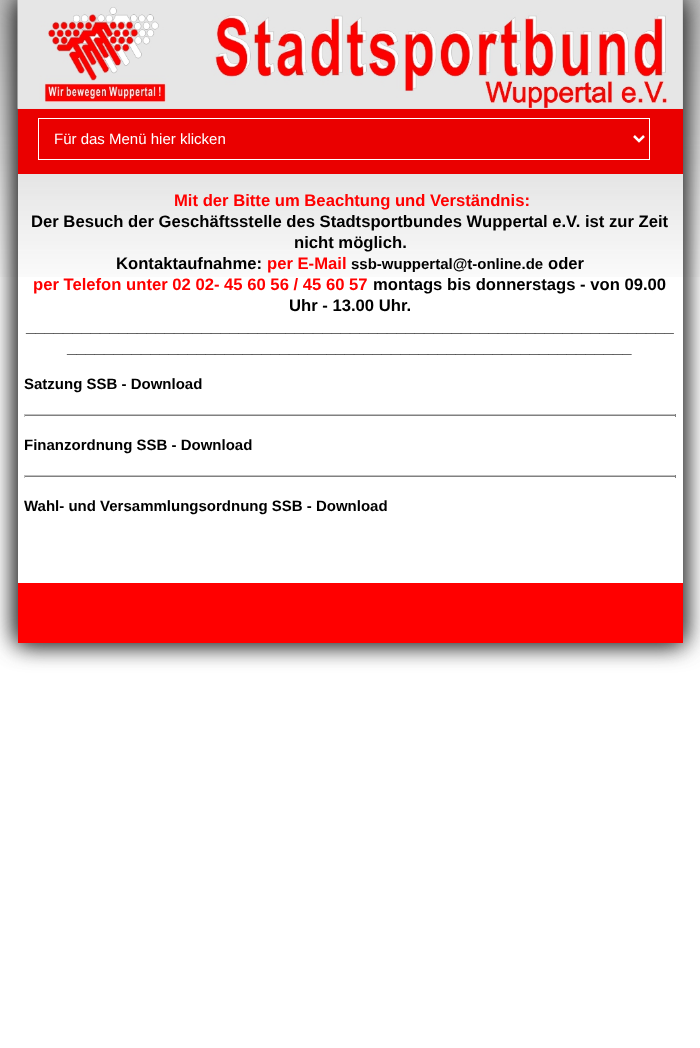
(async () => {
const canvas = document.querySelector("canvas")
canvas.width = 700
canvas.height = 1048
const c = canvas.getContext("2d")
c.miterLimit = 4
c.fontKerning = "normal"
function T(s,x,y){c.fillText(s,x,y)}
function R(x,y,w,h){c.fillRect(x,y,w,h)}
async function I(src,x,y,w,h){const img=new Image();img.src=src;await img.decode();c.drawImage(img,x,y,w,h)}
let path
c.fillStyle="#fff"
R(0,0,700,1048)
await I("1.png",0,0,700,277)
c.save()
path = new Path2D("M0 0h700v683h-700zm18 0h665v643h-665z")
c.clip(path,"evenodd")
c.fillStyle="#333"
c.filter="blur(12.5px)"
c.beginPath()
c.rect(19,1,665,643)
c.fill()
c.filter="none"
c.restore()
c.save()
path = new Path2D("M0 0h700v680h-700zm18 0h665v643h-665z")
c.clip(path,"evenodd")
c.fillStyle="#333"
c.filter="blur(12.5px)"
c.beginPath()
c.rect(16,-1,665,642)
c.fill()
c.filter="none"
c.restore()
await I("2.png",17,0,666,109)
c.fillStyle="#ea0000"
R(18,109,665,65)
c.strokeStyle="#fff"
c.strokeRect(38.5,118.5,611,41)
path = new Path2D("M634 136l5 5l5-5")
c.lineWidth=2.5
c.stroke(path)
c.font="15px Liberation Sans"
c.fillStyle="#fff"
T("Für das Menü hier klicken",54,144)
c.font="bold 16.65px Liberation Sans"
c.fillStyle="#f00"
T("Mit der Bitte um Beachtung und Verständnis:",174,206)
c.fillStyle="#000"
T("Der Besuch der Geschäftsstelle des Stadtsportbundes Wuppertal e.V. ist zur Zeit",31,227)
T("nicht möglich.",294,248)
T("Kontaktaufnahme:",116,269)
c.fillStyle="#f00"
T("per E-Mail",267,269)
c.font="bold 15px Liberation Sans"
c.fillStyle="#000"
T("ssb-wuppertal@t-online.de",351,269)
c.font="bold 16.65px Liberation Sans"
T("oder",548,269)
c.fillStyle="#f00"
T("per Telefon unter 02 02- 45 60 56 / 45 60 57",33,290)
c.fillStyle="#000"
T("montags bis donnerstags - von 09.00",373,290)
T("Uhr - 13.00 Uhr.",289,311)
T("______________________________________________________________________",26,332)
T("_____________________________________________________________",67,353)
c.font="bold 15px Liberation Sans"
T("Satzung SSB - Download",24,389)
c.fillStyle="#c0c0c0"
R(24,414,652,1)
c.fillStyle="#808080"
R(675,414,1,3)
R(24,415,652,1)
c.fillStyle="#c0c0c0"
R(24,414,1,3)
c.fillStyle="#000"
T("Finanzordnung SSB - Download",24,450)
c.fillStyle="#c0c0c0"
R(24,475,652,1)
c.fillStyle="#808080"
R(675,475,1,3)
R(24,476,652,1)
c.fillStyle="#c0c0c0"
R(24,475,1,3)
c.fillStyle="#000"
T("Wahl- und Versammlungsordnung SSB - Download",24,511)
c.fillStyle="#f00"
R(18,583,665,60)
})()
